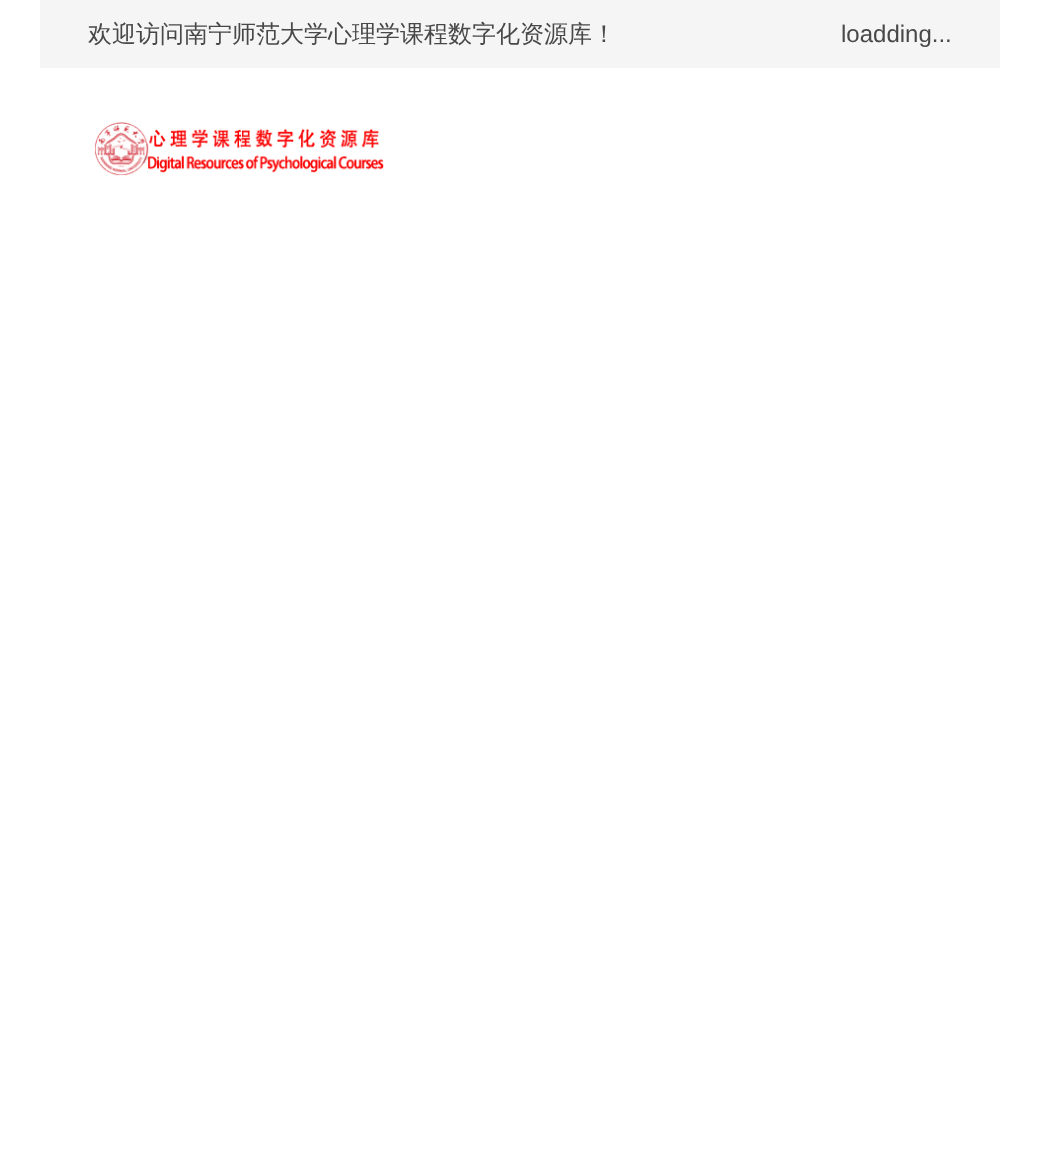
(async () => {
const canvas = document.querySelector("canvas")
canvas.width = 1040
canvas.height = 1166
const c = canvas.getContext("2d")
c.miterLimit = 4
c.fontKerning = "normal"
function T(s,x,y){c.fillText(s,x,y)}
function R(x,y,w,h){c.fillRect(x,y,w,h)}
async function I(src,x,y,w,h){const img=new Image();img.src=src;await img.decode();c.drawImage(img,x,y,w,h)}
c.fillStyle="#fff"
R(0,0,1040,1166)
c.fillStyle="#f5f5f5"
R(40,0,960,68)
c.font="500 24px WenQuanYi Zen Hei"
c.fillStyle="#484848"
T("欢迎访问南宁师范大学心理学课程数字化资源库！",88,42)
c.font="24px Liberation Sans"
T("loadding...",841,42)
await I("1.png",94,122,290,54)
})()
